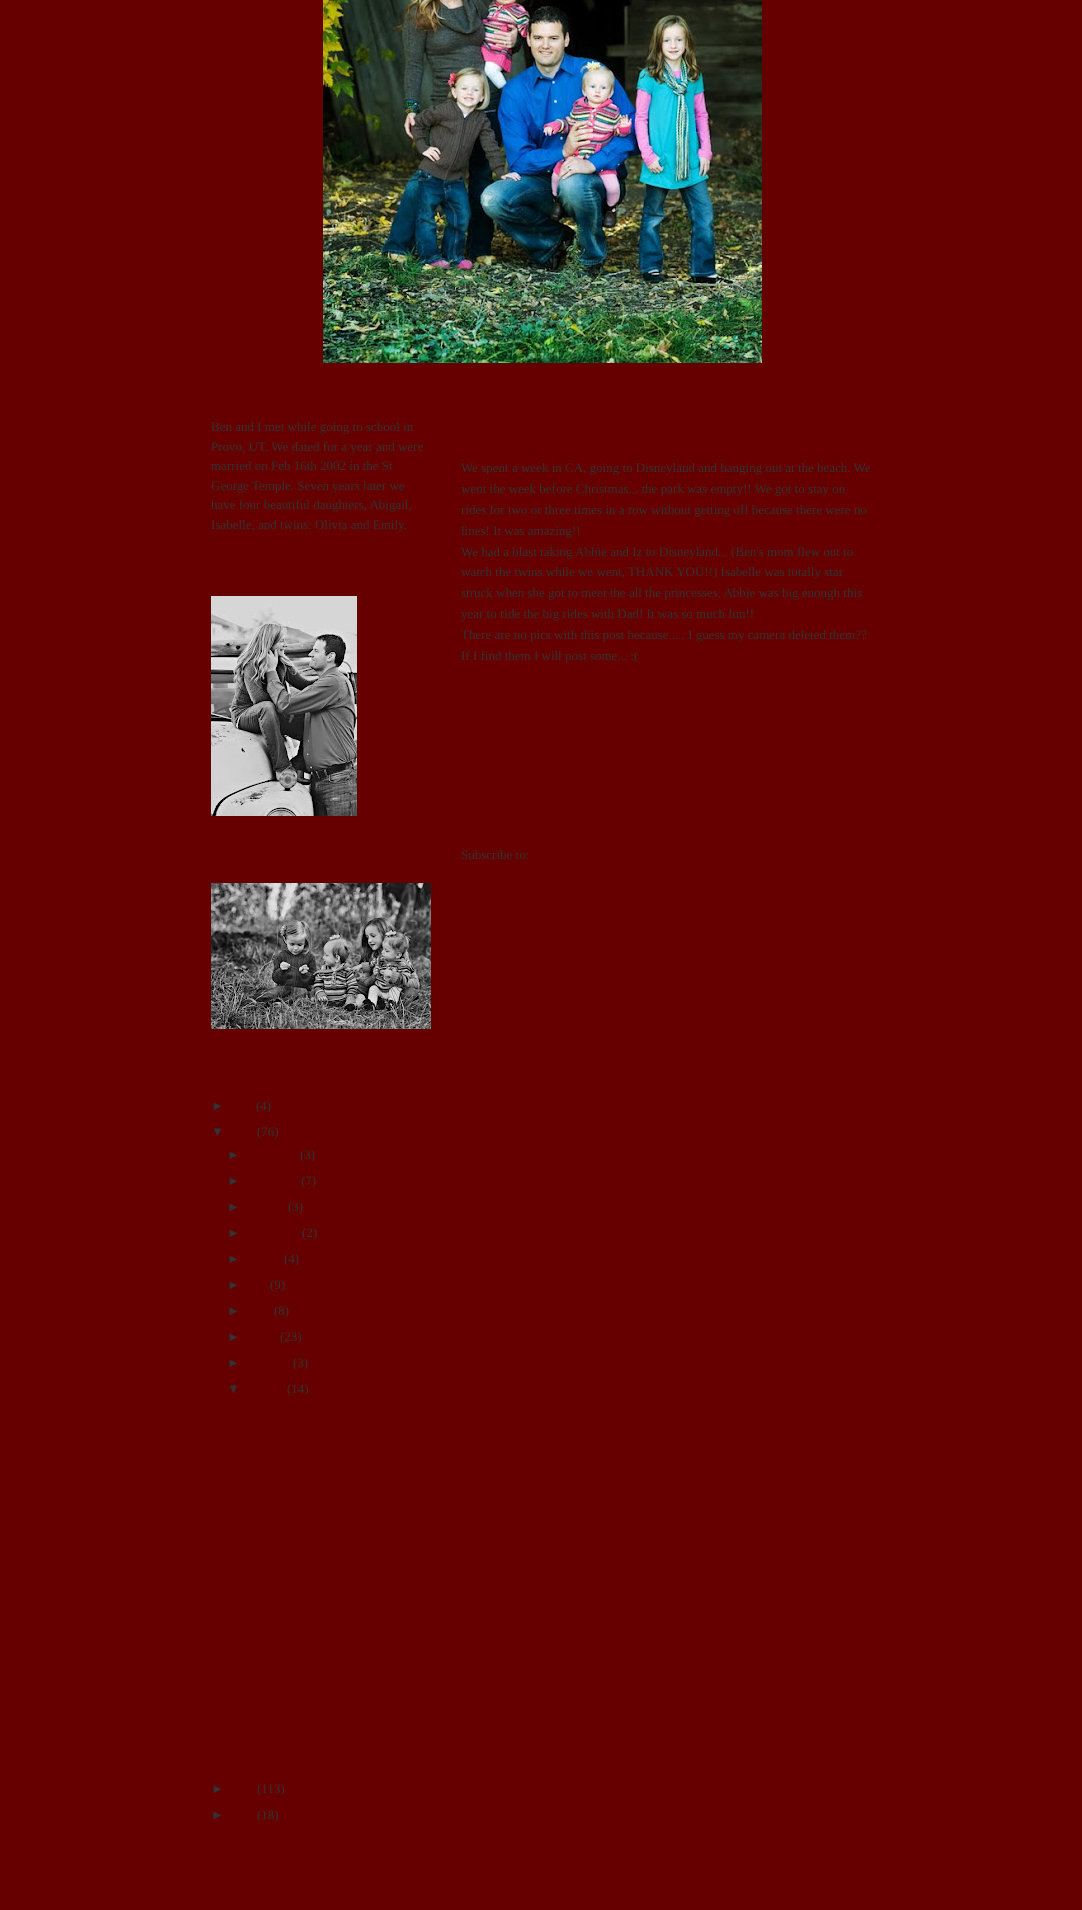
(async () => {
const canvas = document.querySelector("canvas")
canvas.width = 1082
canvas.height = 1910
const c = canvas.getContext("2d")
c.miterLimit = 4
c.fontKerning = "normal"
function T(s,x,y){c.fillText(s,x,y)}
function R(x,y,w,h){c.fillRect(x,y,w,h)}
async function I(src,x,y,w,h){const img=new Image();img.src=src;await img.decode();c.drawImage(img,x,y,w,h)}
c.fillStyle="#600"
R(0,0,1082,1910)
await I("1.png",323,0,439,363)
c.font="13px Liberation Serif"
c.fillStyle="#333"
T("Ben and I met while going to school in",211,431)
T("Provo, UT. We dated for a year and were",211,451)
T("married on Feb 16th 2002 in the St",211,470)
T("George Temple. Seven years later we",211,490)
T("have four beautiful daughters, Abigail,",211,509)
T("Isabelle, and twins: Olivia and Emily.",211,529)
await I("2.png",211,596,146,220)
await I("3.png",211,883,220,146)
c.font="13px Liberation Sans"
T("►",211,1110)
c.font="13px Liberation Serif"
T("(4)",256,1110)
c.font="13px Liberation Sans"
T("▼",211,1136)
c.font="13px Liberation Serif"
T("(76)",257,1136)
c.font="13px Liberation Sans"
T("►",227,1159)
c.font="13px Liberation Serif"
T("(3)",300,1159)
c.font="13px Liberation Sans"
T("►",227,1185)
c.font="13px Liberation Serif"
T("(7)",301,1185)
c.font="13px Liberation Sans"
T("►",227,1211)
c.font="13px Liberation Serif"
T("(3)",288,1211)
c.font="13px Liberation Sans"
T("►",227,1237)
c.font="13px Liberation Serif"
T("(2)",302,1237)
c.font="13px Liberation Sans"
T("►",227,1263)
c.font="13px Liberation Serif"
T("(4)",284,1263)
c.font="13px Liberation Sans"
T("►",227,1289)
c.font="13px Liberation Serif"
T("(9)",270,1289)
c.font="13px Liberation Sans"
T("►",227,1315)
c.font="13px Liberation Serif"
T("(8)",274,1315)
c.font="13px Liberation Sans"
T("►",227,1341)
c.font="13px Liberation Serif"
T("(23)",280,1341)
c.font="13px Liberation Sans"
T("►",227,1367)
c.font="13px Liberation Serif"
T("(3)",293,1367)
c.font="13px Liberation Sans"
T("▼",227,1393)
c.font="13px Liberation Serif"
T("(14)",287,1393)
c.font="13px Liberation Sans"
T("►",211,1793)
c.font="13px Liberation Serif"
T("(113)",257,1793)
c.font="13px Liberation Sans"
T("►",211,1819)
c.font="13px Liberation Serif"
T("(18)",257,1819)
T("We spent a week in CA, going to Disneyland and hanging out at the beach. We",461,472)
T("went the week before Christmas... the park was empty!! We got to stay on",461,493)
T("rides for two or three times in a row without getting off because there were no",461,514)
T("lines! It was amazing!!",461,535)
T("We had a blast taking Abbie and Iz to Disneyland... (Ben's mom flew out to",461,556)
T("watch the twins while we went, THANK YOU!!) Isabelle was totally star",461,576)
T("struck when she got to meet the all the princesses. Abbie was big enough this",461,597)
T("year to ride the big rides with Dad! It was so much fun!!",461,618)
T("There are no pics with this post because..... I guess my camera deleted them??",461,639)
T("If I find them I will post some... :(",461,660)
T("Subscribe to:",461,859)
})()
